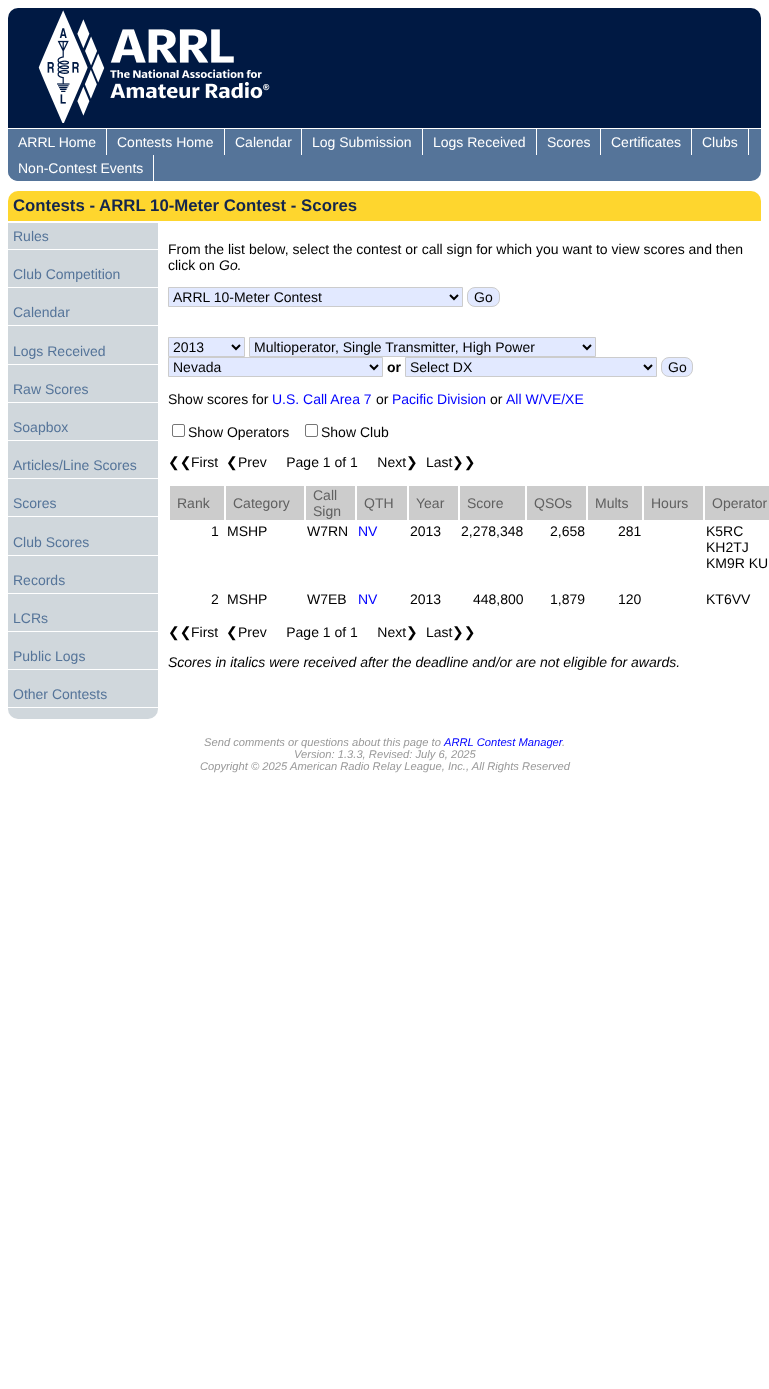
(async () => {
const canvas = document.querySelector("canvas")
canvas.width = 769
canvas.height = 1389
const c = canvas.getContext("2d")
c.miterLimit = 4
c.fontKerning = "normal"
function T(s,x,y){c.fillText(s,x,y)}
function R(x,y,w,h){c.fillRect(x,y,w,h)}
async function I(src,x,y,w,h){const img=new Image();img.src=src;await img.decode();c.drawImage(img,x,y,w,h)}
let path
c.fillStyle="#fff"
R(0,0,769,1389)
c.fillStyle="#001943"
c.beginPath()
c.roundRect(8,8,753,120,[10,10,0,0])
c.fill()
await I("1.png",38,10,232,113)
c.fillStyle="#557499"
c.beginPath()
c.roundRect(8,129,753,52,[0,0,10,10])
c.fill()
c.fillStyle="#fff"
R(106,129,1,26)
c.font="14px Liberation Sans"
T("ARRL Home",18,147)
R(224,129,1,26)
T("Contests Home",117,147)
R(301,129,1,26)
T("Calendar",235,147)
R(422,129,1,26)
T("Log Submission",312,147)
R(536,129,1,26)
T("Logs Received",433,147)
R(600,129,1,26)
T("Scores",547,147)
R(691,129,1,26)
T("Certificates",611,147)
R(748,129,1,26)
T("Clubs",702,147)
c.fillStyle="#557499"
c.beginPath()
c.roundRect(8,155,146,26,[0,0,0,10])
c.fill()
c.fillStyle="#fff"
R(153,155,1,26)
T("Non-Contest Events",18,173)
c.fillStyle="#fed62e"
c.beginPath()
c.roundRect(8,191,753,30,[10,10,0,0])
c.fill()
c.font="bold 16.8px Liberation Sans"
c.fillStyle="#14264d"
T("Contests - ARRL 10-Meter Contest - Scores",13,211)
c.fillStyle="#d0d7dc"
c.beginPath()
c.roundRect(8,223,150,496,[0,0,10,10])
c.fill()
c.fillStyle="#fff"
R(8,249,150,1)
c.font="14px Liberation Sans"
c.fillStyle="#557499"
T("Rules",13,241)
c.fillStyle="#fff"
R(8,287,150,1)
c.fillStyle="#557499"
T("Club Competition",13,279)
c.fillStyle="#fff"
R(8,325,150,1)
c.fillStyle="#557499"
T("Calendar",13,317)
c.fillStyle="#fff"
R(8,364,150,1)
c.fillStyle="#557499"
T("Logs Received",13,356)
c.fillStyle="#fff"
R(8,402,150,1)
c.fillStyle="#557499"
T("Raw Scores",13,394)
c.fillStyle="#fff"
R(8,440,150,1)
c.fillStyle="#557499"
T("Soapbox",13,432)
c.fillStyle="#fff"
R(8,478,150,1)
c.fillStyle="#557499"
T("Articles/Line Scores",13,470)
c.fillStyle="#fff"
R(8,516,150,1)
c.fillStyle="#557499"
T("Scores",13,508)
c.fillStyle="#fff"
R(8,555,150,1)
c.fillStyle="#557499"
T("Club Scores",13,547)
c.fillStyle="#fff"
R(8,593,150,1)
c.fillStyle="#557499"
T("Records",13,585)
c.fillStyle="#fff"
R(8,631,150,1)
c.fillStyle="#557499"
T("LCRs",13,623)
c.fillStyle="#fff"
R(8,669,150,1)
c.fillStyle="#557499"
T("Public Logs",13,661)
c.fillStyle="#fff"
R(8,707,150,1)
c.fillStyle="#557499"
T("Other Contests",13,699)
c.fillStyle="#000"
T("From the list below, select the contest or call sign for which you want to view scores and then",168,254)
T("click on",168,270)
c.font="italic 14px Liberation Sans"
T("Go",219,270)
c.font="14px Liberation Sans"
T(".",237,270)
c.fillStyle="#e2e9ff"
c.beginPath()
c.rect(168.5,287.5,294,19)
c.fill()
c.strokeStyle="#ccc"
c.stroke()
path = new Path2D("M450 295l4 4l4-4")
c.strokeStyle="#000"
c.lineWidth=2
c.stroke(path)
c.fillStyle="#000"
T("ARRL 10-Meter Contest",173,302)
c.fillStyle="#e2e9ff"
c.beginPath()
c.roundRect(467.5,287.5,32,19,7.5)
c.fill()
c.strokeStyle="#ccc"
c.lineWidth=1
c.stroke()
c.fillStyle="#000"
T("Go",474,302)
c.fillStyle="#e2e9ff"
c.beginPath()
c.rect(168.5,337.5,76,19)
c.fill()
c.stroke()
path = new Path2D("M232 345l4 4l4-4")
c.strokeStyle="#000"
c.lineWidth=2
c.stroke(path)
c.fillStyle="#000"
T("2013",173,352)
c.fillStyle="#e2e9ff"
c.beginPath()
c.rect(249.5,337.5,346,19)
c.fill()
c.strokeStyle="#ccc"
c.lineWidth=1
c.stroke()
path = new Path2D("M583 345l4 4l4-4")
c.strokeStyle="#000"
c.lineWidth=2
c.stroke(path)
c.fillStyle="#000"
T("Multioperator, Single Transmitter, High Power",254,352)
c.fillStyle="#e2e9ff"
c.beginPath()
c.rect(168.5,357.5,214,19)
c.fill()
c.strokeStyle="#ccc"
c.lineWidth=1
c.stroke()
path = new Path2D("M370 365l4 4l4-4")
c.strokeStyle="#000"
c.lineWidth=2
c.stroke(path)
c.fillStyle="#000"
T("Nevada",173,372)
c.font="bold 14px Liberation Sans"
T("or",387,372)
c.fillStyle="#e2e9ff"
c.beginPath()
c.rect(405.5,357.5,251,19)
c.fill()
c.strokeStyle="#ccc"
c.lineWidth=1
c.stroke()
path = new Path2D("M644 365l4 4l4-4")
c.strokeStyle="#000"
c.lineWidth=2
c.stroke(path)
c.font="14px Liberation Sans"
c.fillStyle="#000"
T("Select DX",410,372)
c.fillStyle="#e2e9ff"
c.beginPath()
c.roundRect(661.5,357.5,31,19,7.5)
c.fill()
c.strokeStyle="#ccc"
c.lineWidth=1
c.stroke()
c.fillStyle="#000"
T("Go",668,372)
T("Show scores for",168,404)
c.fillStyle="#00f"
T("U.S. Call Area 7",272,404)
c.fillStyle="#000"
T("or",376,404)
c.fillStyle="#00f"
T("Pacific Division",392,404)
c.fillStyle="#000"
T("or",490,404)
c.fillStyle="#00f"
T("All W/VE/XE",506,404)
c.beginPath()
c.roundRect(172.5,424.5,12,12,1.5)
c.strokeStyle="#767676"
c.stroke()
c.fillStyle="#000"
T("Show Operators",188,437)
c.beginPath()
c.roundRect(305.5,424.5,12,12,1.5)
c.stroke()
T("Show Club",321,437)
c.font="14px DejaVu Sans"
T("❮❮",168,467)
c.font="14px Liberation Sans"
T("First",191,467)
c.font="14px DejaVu Sans"
T("❮",226,467)
c.font="14px Liberation Sans"
T("Prev     Page 1 of 1     Next",238,467)
c.font="14px DejaVu Sans"
T("❯",406,467)
c.font="14px Liberation Sans"
T("Last",426,467)
c.font="14px DejaVu Sans"
T("❯❯",452,467)
c.fillStyle="#ccc"
R(170,486,54,34)
c.font="14px Liberation Sans"
c.fillStyle="#606060"
T("Rank",177,508)
c.fillStyle="#ccc"
R(226,486,78,34)
c.fillStyle="#606060"
T("Category",233,508)
c.fillStyle="#ccc"
R(306,486,49,34)
c.fillStyle="#606060"
T("Call",313,500)
T("Sign",313,516)
c.fillStyle="#ccc"
R(357,486,50,34)
c.fillStyle="#606060"
T("QTH",364,508)
c.fillStyle="#ccc"
R(409,486,49,34)
c.fillStyle="#606060"
T("Year",416,508)
c.fillStyle="#ccc"
R(460,486,65,34)
c.fillStyle="#606060"
T("Score",467,508)
c.fillStyle="#ccc"
R(527,486,59,34)
c.fillStyle="#606060"
T("QSOs",534,508)
c.fillStyle="#ccc"
R(588,486,54,34)
c.fillStyle="#606060"
T("Mults",595,508)
c.fillStyle="#ccc"
R(644,486,59,34)
c.fillStyle="#606060"
T("Hours",651,508)
c.fillStyle="#ccc"
R(705,486,64,34)
c.fillStyle="#606060"
T("Operator",712,508)
c.fillStyle="#000"
T("1",211,536)
T("MSHP",227,536)
T("W7RN",307,536)
c.fillStyle="#00f"
T("NV",358,536)
c.fillStyle="#000"
T("2013",410,536)
T("2,278,348",461,536)
T("2,658",550,536)
T("281",618,536)
T("K5RC",706,536)
T("KH2TJ",706,552)
T("KM9R KU",706,568)
T("2",211,604)
T("MSHP",227,604)
T("W7EB",307,604)
c.fillStyle="#00f"
T("NV",358,604)
c.fillStyle="#000"
T("2013",410,604)
T("448,800",473,604)
T("1,879",550,604)
T("120",618,604)
T("KT6VV",706,604)
c.font="14px DejaVu Sans"
T("❮❮",168,637)
c.font="14px Liberation Sans"
T("First",191,637)
c.font="14px DejaVu Sans"
T("❮",226,637)
c.font="14px Liberation Sans"
T("Prev     Page 1 of 1     Next",238,637)
c.font="14px DejaVu Sans"
T("❯",406,637)
c.font="14px Liberation Sans"
T("Last",426,637)
c.font="14px DejaVu Sans"
T("❯❯",452,637)
c.font="italic 14px Liberation Sans"
T("Scores in italics were received after the deadline and/or are not eligible for awards.",168,667)
c.font="italic 11.2px Liberation Sans"
c.fillStyle="#999"
T("Send comments or questions about this page to",204,746)
c.fillStyle="#00f"
T("ARRL Contest Manager",444,746)
c.fillStyle="#999"
T(".",562,746)
T("Version: 1.3.3, Revised: July 6, 2025",294,758)
T("Copyright © 2025 American Radio Relay League, Inc., All Rights Reserved",200,770)
})()
